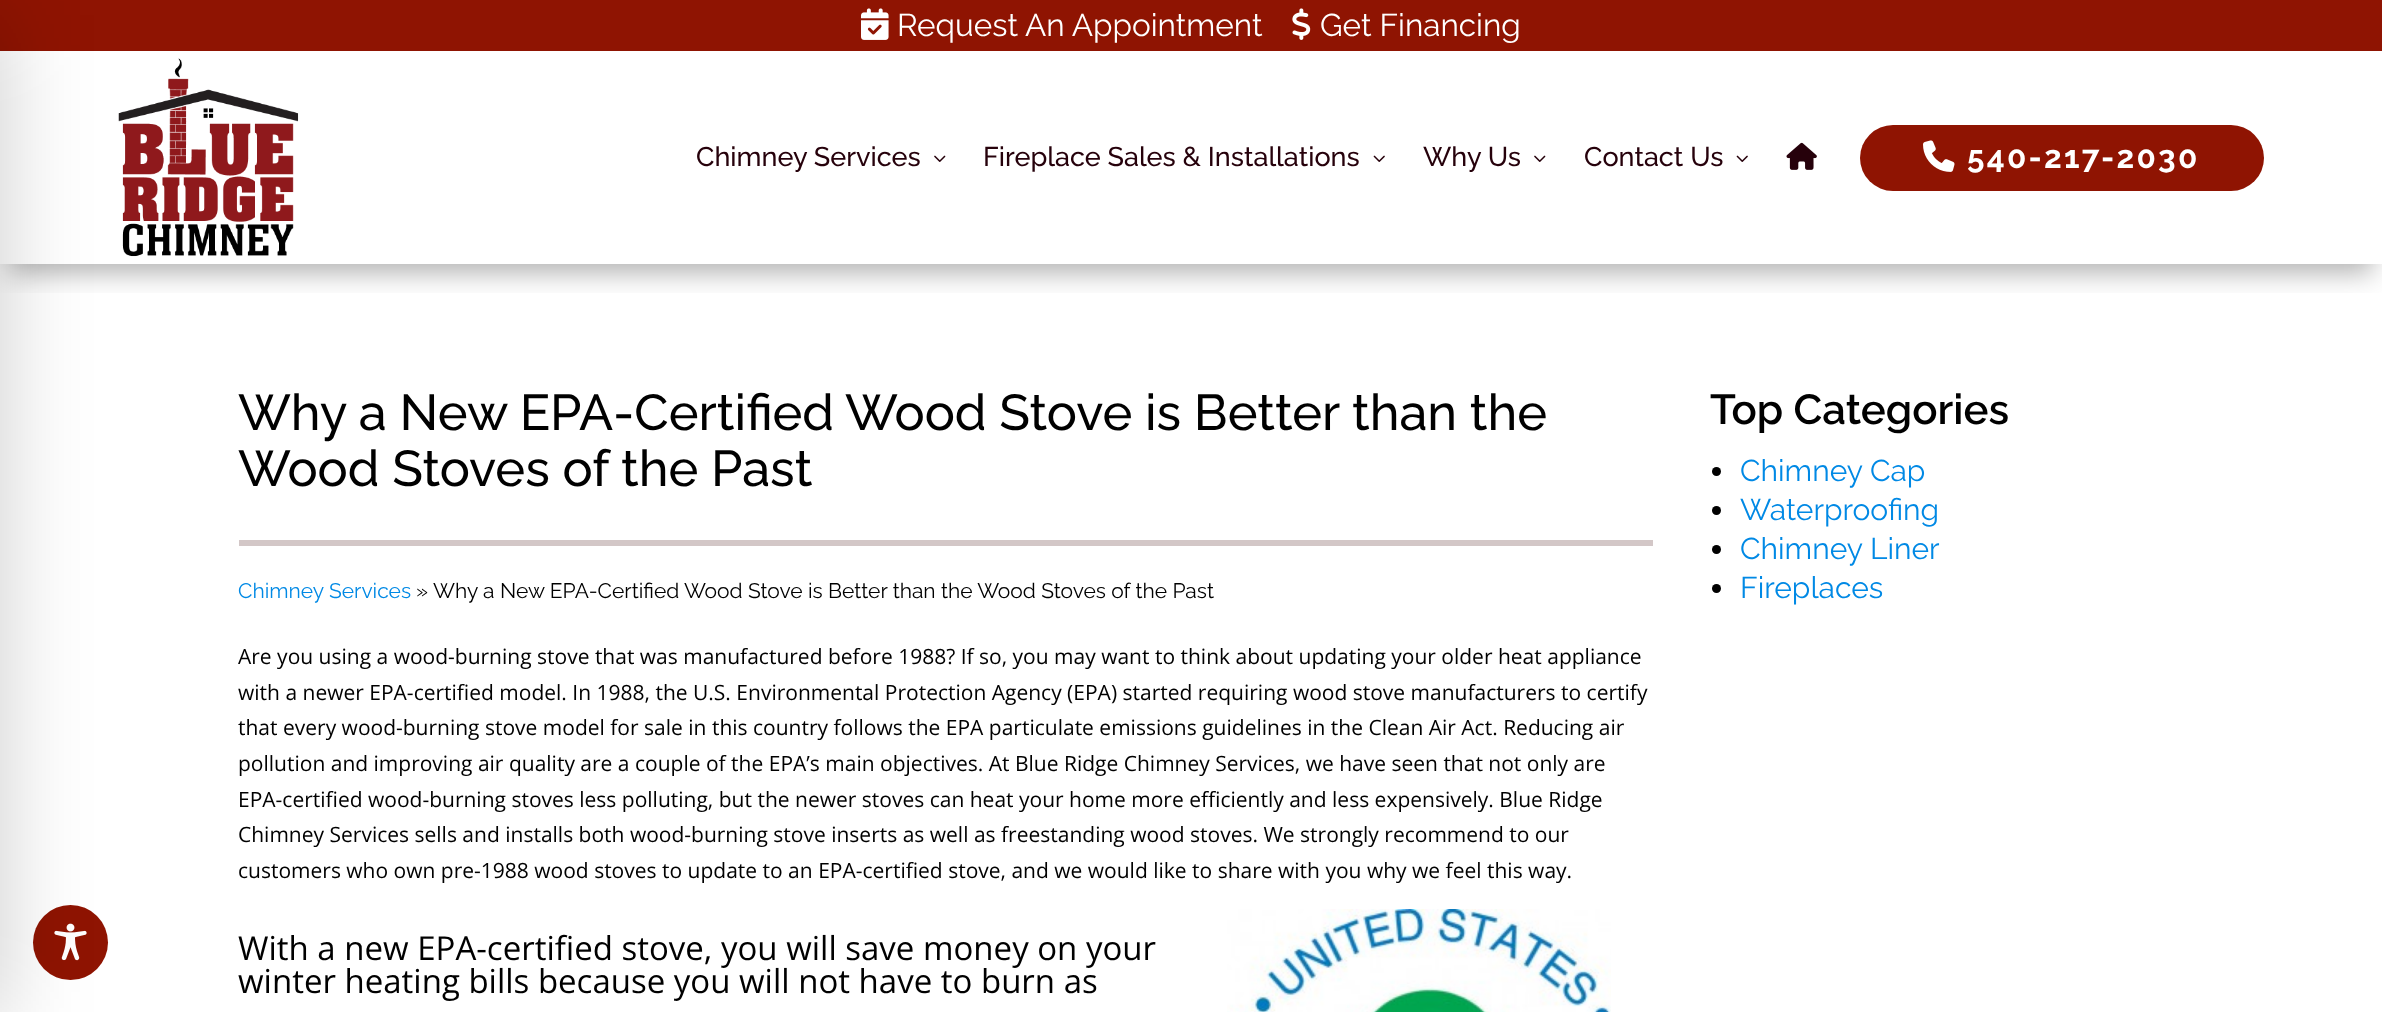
(async () => {
const canvas = document.querySelector("canvas")
canvas.width = 2382
canvas.height = 1012
const c = canvas.getContext("2d")
c.miterLimit = 4
c.fontKerning = "normal"
function T(s,x,y){c.fillText(s,x,y)}
function R(x,y,w,h){c.fillRect(x,y,w,h)}
function Q(x,y,w,h,r){c.beginPath();c.roundRect(x,y,w,h,r);c.fill()}
async function I(src,x,y,w,h){const img=new Image();img.src=src;await img.decode();c.drawImage(img,x,y,w,h)}
c.fillStyle="#fff"
R(0,0,2382,1012)
c.save()
c.beginPath()
c.rect(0,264,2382,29)
c.clip()
c.fillStyle="#0000004d"
c.filter="blur(13.5px)"
c.beginPath()
c.rect(9,27,2364,246)
c.fill()
c.filter="none"
c.restore()
c.fillStyle="#8f1402"
R(0,0,2382,51)
await I("3.png",118,58,181,199)
c.beginPath()
c.arc(70.5,942.5,37.5,0,7)
c.fill()
await I("9.png",54,923,33,38)
c.fillStyle="#00000033"
c.filter="blur(45px)"
c.beginPath()
c.rect(-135,15,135,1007)
c.fill()
c.filter="none"
await I("1.png",861,8,28,32)
c.font="31.5px Raleway"
c.fillStyle="#fff"
T("Request An Appointment",897,36)
await I("2.png",1292,8,19,32)
T("Get Financing",1320,36)
c.font="500 27px Raleway"
c.fillStyle="#26010b"
T("Chimney Services",696,166)
await I("4.png",934,155,12,7)
T("Fireplace Sales & Installations",983,166)
await I("5.png",1373,155,12,7)
T("Why Us",1423,166)
await I("4.png",1534,155,12,7)
T("Contact Us",1584,166)
await I("5.png",1736,155,12,7)
await I("6.png",1786,142,31,28)
c.fillStyle="#8f1402"
Q(1860,125,404,66,33)
await I("7.png",1923,140,32,32)
c.letterSpacing="2.25px"
c.font="bold 31.5px Raleway"
c.fillStyle="#fff"
T("540-217-2030",1967,168)
c.letterSpacing="0px"
c.font="500 50.4px Raleway"
c.fillStyle="#000"
T("Why a New EPA-Certified Wood Stove is Better than the",238,430)
T("Wood Stoves of the Past",238,486)
c.fillStyle="#d3c7c7"
R(239,540,1414,6)
c.font="21px Raleway"
c.fillStyle="#0089e5"
T("Chimney Services",238,598)
c.fillStyle="#000"
T("»",416,598)
T("Why a New EPA-Certified Wood Stove is Better than the Wood Stoves of the Past",433,598)
c.font="21px Open Sans"
T("Are you using a wood-burning stove that was manufactured before 1988? If so, you may want to think about updating your older heat appliance",238,664)
T("with a newer EPA-certified model. In 1988, the U.S. Environmental Protection Agency (EPA) started requiring wood stove manufacturers to certify",238,700)
T("that every wood-burning stove model for sale in this country follows the EPA particulate emissions guidelines in the Clean Air Act. Reducing air",238,735)
T("pollution and improving air quality are a couple of the EPA’s main objectives. At Blue Ridge Chimney Services, we have seen that not only are",238,771)
T("EPA-certified wood-burning stoves less polluting, but the newer stoves can heat your home more efficiently and less expensively. Blue Ridge",238,807)
T("Chimney Services sells and installs both wood-burning stove inserts as well as freestanding wood stoves. We strongly recommend to our",238,842)
T("customers who own pre-1988 wood stoves to update to an EPA-certified stove, and we would like to share with you why we feel this way.",238,878)
c.font="33px Open Sans"
T("With a new EPA-certified stove, you will save money on your",238,960)
T("winter heating bills because you will not have to burn as",238,993)
await I("8.png",1227,909,384,103)
c.font="600 42px Raleway"
T("Top Categories",1710,424)
c.beginPath()
c.arc(1716.5,471.5,4.5,0,7)
c.fill()
c.font="30px Raleway"
c.fillStyle="#0089e5"
T("Chimney Cap",1740,481)
c.fillStyle="#000"
c.beginPath()
c.arc(1716.5,510.5,4.5,0,7)
c.fill()
c.fillStyle="#0089e5"
T("Waterproofing",1740,520)
c.fillStyle="#000"
c.beginPath()
c.arc(1716.5,549.5,4.5,0,7)
c.fill()
c.fillStyle="#0089e5"
T("Chimney Liner",1740,559)
c.fillStyle="#000"
c.beginPath()
c.arc(1716.5,588.5,4.5,0,7)
c.fill()
c.fillStyle="#0089e5"
T("Fireplaces",1740,598)
})()
